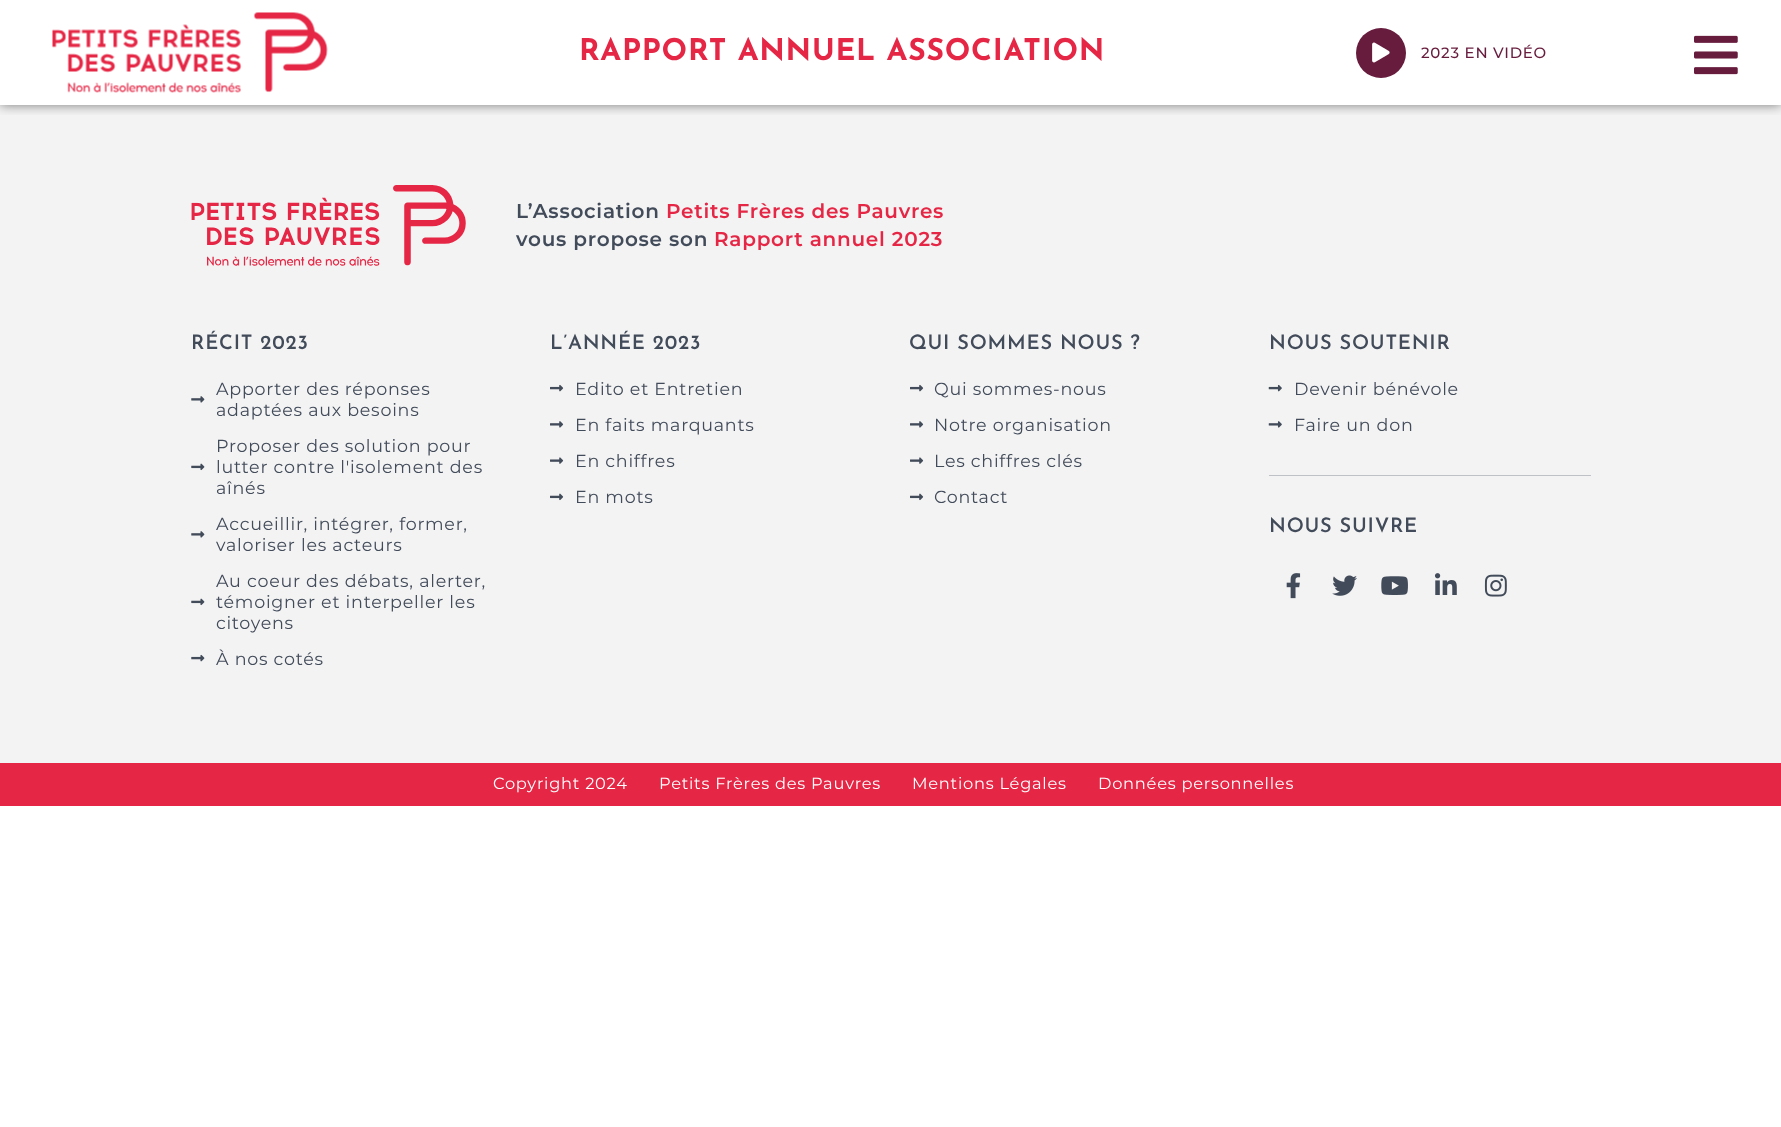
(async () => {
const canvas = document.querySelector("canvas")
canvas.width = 1781
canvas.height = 1127
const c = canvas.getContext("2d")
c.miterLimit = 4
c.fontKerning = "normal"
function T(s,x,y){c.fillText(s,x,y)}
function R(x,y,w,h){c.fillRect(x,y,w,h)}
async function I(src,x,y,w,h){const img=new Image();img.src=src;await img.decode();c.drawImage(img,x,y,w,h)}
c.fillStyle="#fff"
R(0,0,1781,1127)
c.fillStyle="#f3f3f3"
R(0,105,1781,658)
c.save()
c.beginPath()
c.rect(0,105,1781,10)
c.clip()
c.fillStyle="#00000080"
c.filter="blur(6px)"
c.beginPath()
c.rect(0,0,1781,105)
c.fill()
c.filter="none"
c.restore()
await I("1.png",52,12,276,81)
c.letterSpacing="0.75px"
c.font="bold 30px Josefin Sans"
c.fillStyle="#e52645"
T("RAPPORT ANNUEL ASSOCIATION",579,60)
c.fillStyle="#671c3d"
c.beginPath()
c.arc(1381,53,25,0,7)
c.fill()
await I("2.png",1372,42,18,21)
c.font="500 15px Montserrat"
T("2023 EN VIDÉO",1421,58)
await I("3.png",1694,35,44,40)
await I("4.png",191,185,275,81)
c.font="600 20px Montserrat"
c.fillStyle="#424b5a"
T("L’Association",516,218)
c.fillStyle="#e52645"
T("Petits Frères des Pauvres",666,218)
c.fillStyle="#424b5a"
T("vous propose son",516,246)
c.fillStyle="#e52645"
T("Rapport annuel 2023",714,246)
c.font="600 20px Josefin Sans"
c.fillStyle="#424b5a"
T("RÉCIT 2023",191,349)
await I("5.png",191,396,14,7)
c.font="17.5px Montserrat"
T("Apporter des réponses",216,395)
T("adaptées aux besoins",216,416)
await I("6.png",191,463,14,8)
T("Proposer des solution pour",216,452)
T("lutter contre l'isolement des",216,473)
T("aînés",216,494)
await I("5.png",191,531,14,7)
T("Accueillir, intégrer, former,",216,530)
T("valoriser les acteurs",216,551)
await I("6.png",191,598,14,8)
T("Au coeur des débats, alerter,",216,587)
T("témoigner et interpeller les",216,608)
T("citoyens",216,629)
await I("7.png",191,654,14,8)
T("À nos cotés",216,665)
c.font="600 20px Josefin Sans"
T("L’ANNÉE 2023",550,349)
await I("8.png",550,384,14,8)
c.font="17.5px Montserrat"
T("Edito et Entretien",575,395)
await I("9.png",550,421,14,7)
T("En faits marquants",575,431)
await I("10.png",550,457,14,7)
T("En chiffres",575,467)
await I("11.png",550,493,14,8)
T("En mots",575,503)
c.font="600 20px Josefin Sans"
T("QUI SOMMES NOUS ?",909,349)
await I("8.png",910,384,14,8)
c.font="17.5px Montserrat"
T("Qui sommes-nous",934,395)
await I("9.png",910,421,14,7)
T("Notre organisation",934,431)
await I("10.png",910,457,14,7)
T("Les chiffres clés",934,467)
await I("11.png",910,493,14,8)
T("Contact",934,503)
c.font="600 20px Josefin Sans"
T("NOUS SOUTENIR",1269,349)
await I("12.png",1268,384,14,8)
c.font="17.5px Montserrat"
T("Devenir bénévole",1294,395)
await I("13.png",1268,421,14,7)
T("Faire un don",1294,431)
c.fillStyle="#bec1c5"
R(1269,475,322,1)
c.font="600 20px Josefin Sans"
c.fillStyle="#424b5a"
T("NOUS SUIVRE",1269,532)
await I("14.png",1286,573,15,26)
await I("15.png",1332,575,25,21)
await I("16.png",1381,576,27,19)
await I("17.png",1434,573,23,22)
await I("18.png",1484,574,23,23)
c.fillStyle="#e52645"
R(0,763,1781,43)
c.font="16.25px Montserrat"
c.fillStyle="#fff"
T("Copyright 2024",493,789)
T("Petits Frères des Pauvres",659,789)
T("Mentions Légales",912,789)
T("Données personnelles",1098,789)
})()
